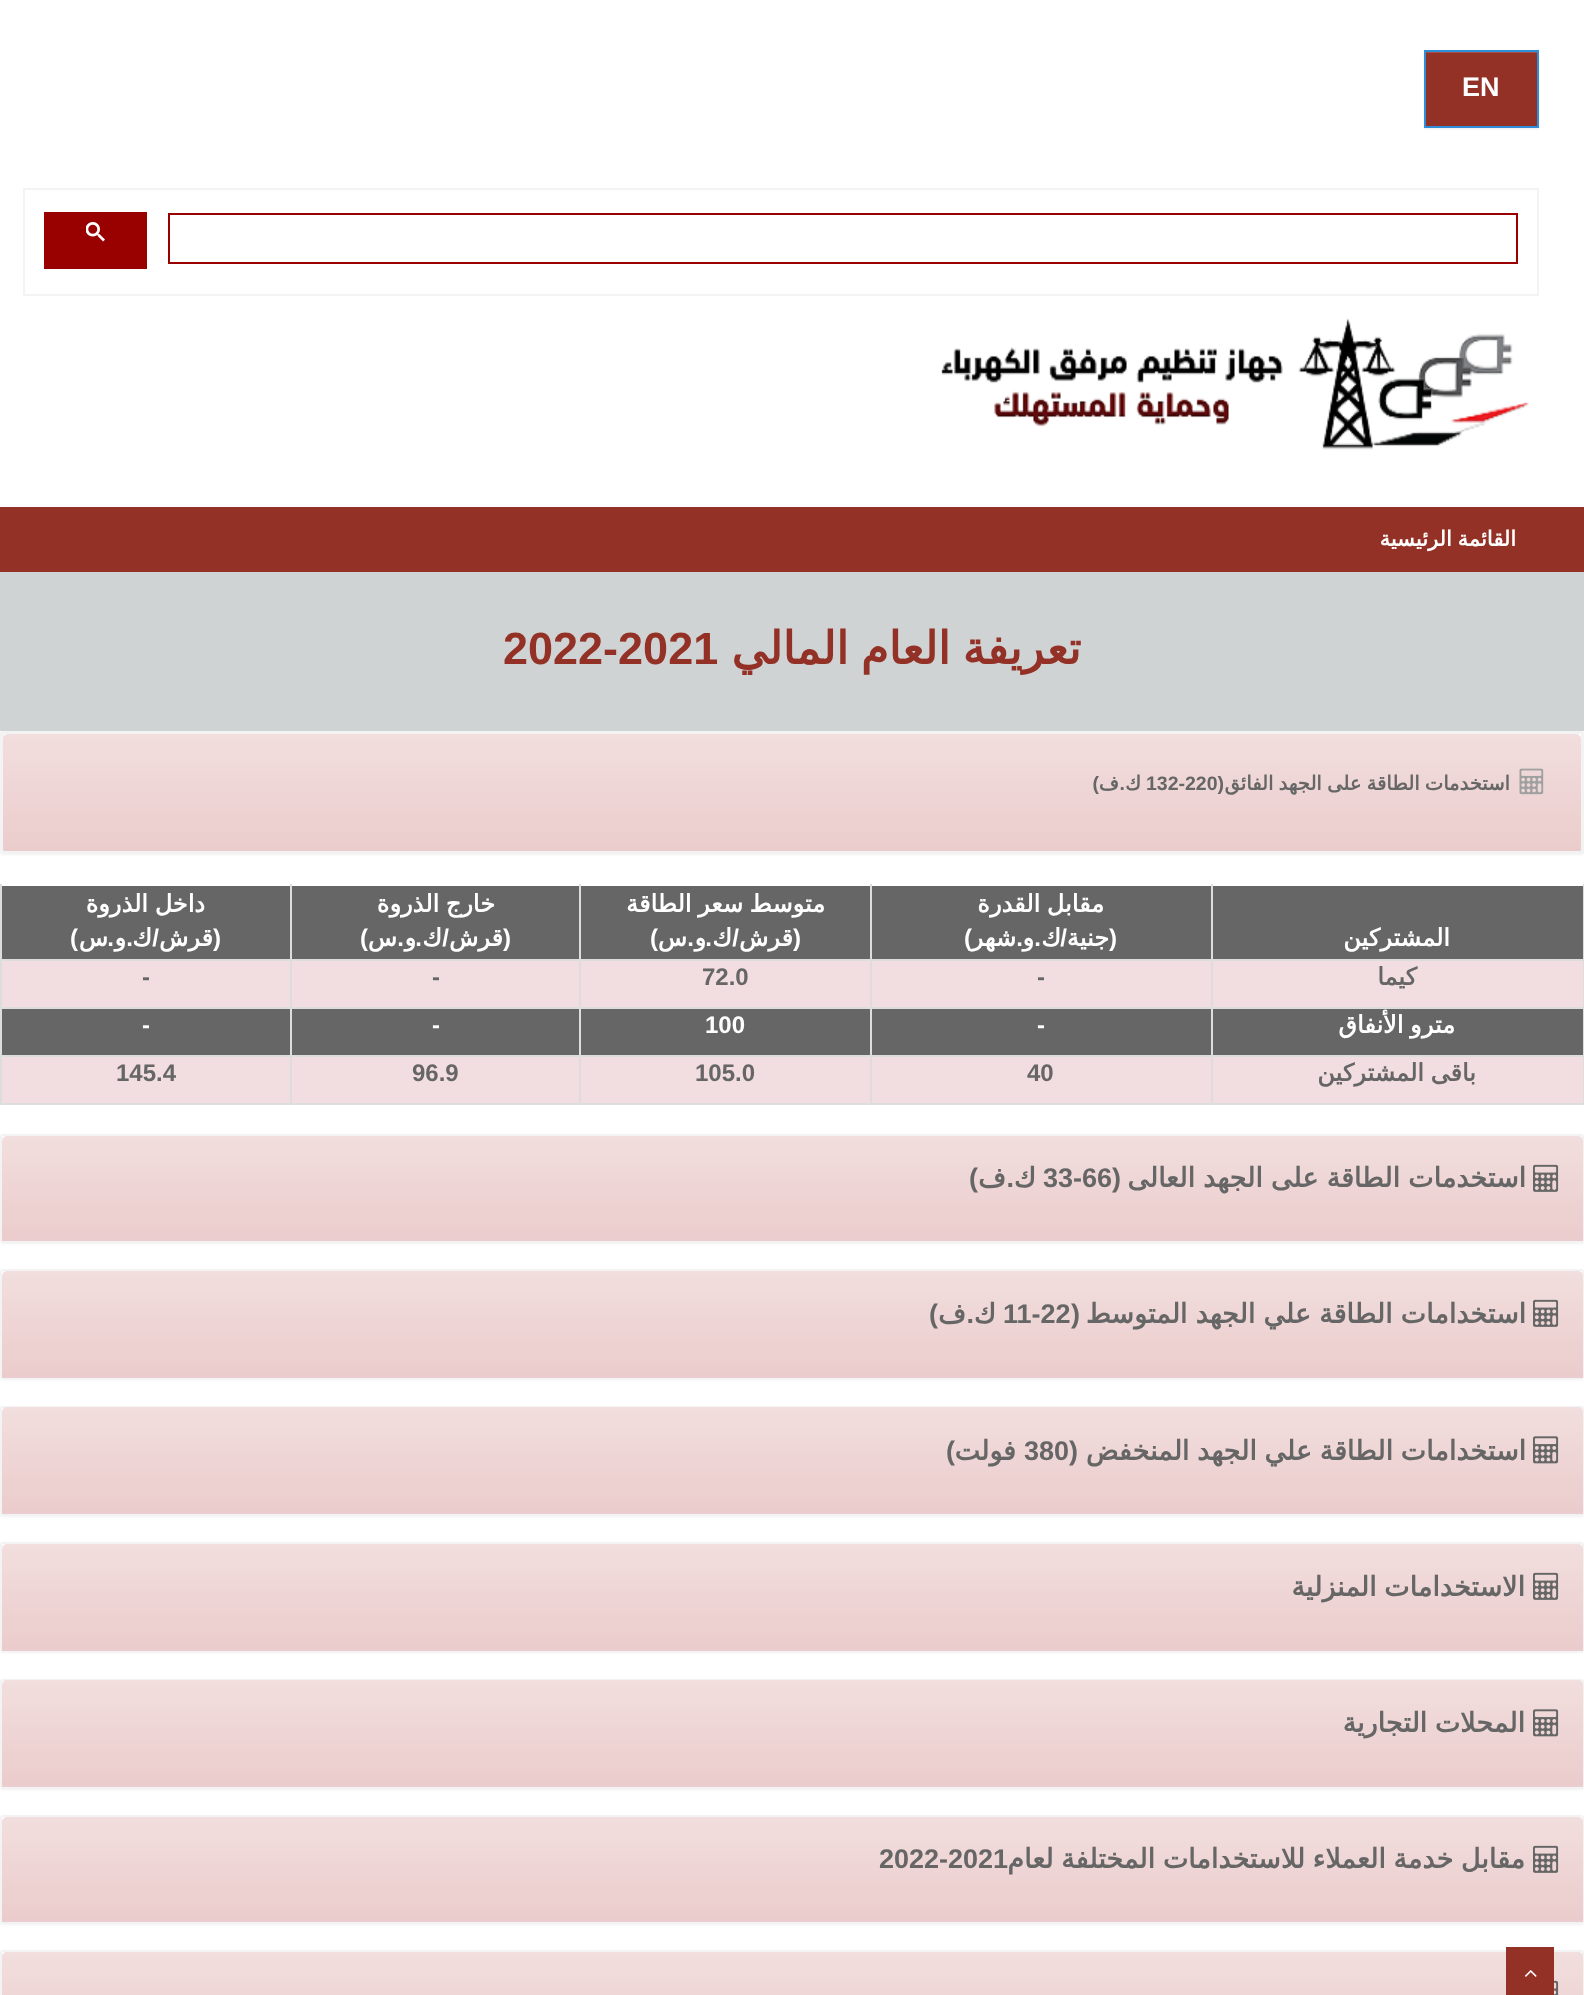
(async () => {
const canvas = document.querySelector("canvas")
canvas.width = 1584
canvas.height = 1995
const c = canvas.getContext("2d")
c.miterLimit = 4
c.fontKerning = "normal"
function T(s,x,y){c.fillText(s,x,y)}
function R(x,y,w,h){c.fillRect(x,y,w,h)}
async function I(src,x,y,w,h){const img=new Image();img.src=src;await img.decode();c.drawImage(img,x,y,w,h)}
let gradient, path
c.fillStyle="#fff"
R(0,0,1584,1995)
c.fillStyle="#00000012"
c.filter="blur(1px)"
c.beginPath()
c.rect(1424,51,115,78)
c.fill()
c.filter="none"
c.fillStyle="#943126"
R(1426,53,111,73)
c.fillStyle="#a45047"
R(1425,52,113,1)
c.strokeStyle="#2e8eda"
c.lineWidth=2
c.strokeRect(1425,51,113,76)
c.font="bold 27px Liberation Sans"
c.fillStyle="#fff"
T("EN",1462,96)
c.strokeStyle="#f3f3f3"
c.strokeRect(24,189,1514,106)
c.strokeStyle="#900"
c.strokeRect(169,214,1348,49)
c.fillStyle="#900"
R(44,212,103,57)
await I("1.png",86,222,19,20)
await I("2.png",941,318,588,132)
c.fillStyle="#943126"
R(0,507,1584,65)
c.wordSpacing="-1px"
c.direction="rtl"
c.font="bold 21px DejaVu Sans"
c.fillStyle="#fff"
T("القائمة الرئيسية",1516,546)
c.fillStyle="#0000000d"
c.filter="blur(1px)"
c.beginPath()
c.roundRect(0,732,1584,123,3)
c.fill()
c.filter="none"
c.fillStyle="#fff"
c.beginPath()
c.roundRect(1,732,1582,121,2)
c.fill()
c.strokeStyle="#f3f3f3"
c.stroke()
c.save()
c.beginPath()
c.roundRect(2,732,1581,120,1.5)
c.clip()
c.fillStyle="#0000000d"
c.filter="blur(1px)"
c.beginPath()
c.roundRect(2,734,1581,120,3)
c.fill()
c.filter="none"
c.restore()
c.fillStyle="#d0d3d4"
R(0,572,1584,159)
c.wordSpacing="-2px"
c.font="bold 45px DejaVu Sans"
c.fillStyle="#943126"
T("تعريفة العام المالي",1081,664)
c.wordSpacing="0px"
c.direction="ltr"
c.font="bold 45px Liberation Sans"
T("2022-2021",503,664)
c.fillStyle="#fff"
c.beginPath()
c.roundRect(3,733,1579,118,2)
c.fill()
c.stroke()
gradient = c.createLinearGradient(792,733,792,851)
gradient.addColorStop(0,"#f2dede")
gradient.addColorStop(1,"#ebcccc")
c.fillStyle = gradient
c.beginPath()
c.roundRect(3,734,1578,117,[5,5,1.5,1.5])
c.fill()
await I("3.png",1519,768,25,27)
c.wordSpacing="-1px"
c.direction="rtl"
c.font="bold 19.5px DejaVu Sans"
c.fillStyle="#666"
T("استخدمات الطاقة على الجهد الفائق",1510,790)
c.wordSpacing="0px"
c.font="bold 19.5px Liberation Sans"
T("(",1224,790)
c.direction="ltr"
T("132-220",1146,790)
c.direction="rtl"
c.font="bold 19.5px DejaVu Sans"
T("ك",1141,790)
c.font="bold 19.5px Liberation Sans"
T(".",1125,790)
c.font="bold 19.5px DejaVu Sans"
T("ف",1119,790)
c.font="bold 19.5px Liberation Sans"
T(")",1099,790)
c.fillStyle="#ddd"
R(1583,961,1,143)
R(0,1103,1584,2)
R(0,961,2,143)
c.fillStyle="#666"
R(1213,886,370,73)
c.fillStyle="#ddd"
R(0,959,291,2)
R(0,1007,291,2)
R(0,1055,291,2)
R(290,1055,2,49)
R(290,1055,291,2)
R(290,1007,2,49)
R(290,1007,291,2)
R(290,959,2,49)
R(290,959,291,2)
R(579,1055,2,49)
R(579,1055,293,2)
R(579,1007,2,49)
R(579,1007,293,2)
R(579,959,2,49)
R(579,959,293,2)
R(870,1055,2,49)
R(870,1055,342,2)
R(870,1007,2,49)
R(870,1007,342,2)
R(870,959,2,49)
R(870,959,342,2)
R(1211,1055,2,49)
R(1211,1055,373,2)
R(1211,1007,2,49)
R(1211,1007,373,2)
R(1211,959,2,49)
R(1211,959,373,2)
R(1583,884,1,76)
R(1211,884,2,76)
c.font="bold 24px DejaVu Sans"
c.fillStyle="#fff"
T("المشتركين",1450,946)
c.fillStyle="#666"
R(872,886,339,73)
c.fillStyle="#ddd"
R(870,884,2,76)
c.wordSpacing="-1px"
c.fillStyle="#fff"
T("مقابل القدرة",1104,912)
c.wordSpacing="0px"
c.font="bold 24px Liberation Sans"
T("(",1117,946)
c.font="bold 24px DejaVu Sans"
T("جنية",1109,946)
c.font="bold 24px Liberation Sans"
T("/",1067,946)
c.font="bold 24px DejaVu Sans"
T("ك",1061,946)
c.font="bold 24px Liberation Sans"
T(".",1041,946)
c.font="bold 24px DejaVu Sans"
T("و",1034,946)
c.font="bold 24px Liberation Sans"
T(".",1023,946)
T(")",972,946)
c.font="bold 24px DejaVu Sans"
T("شهر",1016,946)
c.fillStyle="#666"
R(581,886,289,73)
c.fillStyle="#ddd"
R(579,884,2,76)
c.wordSpacing="-1px"
c.fillStyle="#fff"
T("متوسط سعر الطاقة",825,912)
c.wordSpacing="0px"
c.font="bold 24px Liberation Sans"
T("(",801,946)
c.font="bold 24px DejaVu Sans"
T("قرش",793,946)
c.font="bold 24px Liberation Sans"
T("/",739,946)
c.font="bold 24px DejaVu Sans"
T("ك",732,946)
c.font="bold 24px Liberation Sans"
T(".",712,946)
T(".",694,946)
c.font="bold 24px DejaVu Sans"
T("و",706,946)
T("س",687,946)
c.font="bold 24px Liberation Sans"
T(")",658,946)
c.fillStyle="#666"
R(292,886,287,73)
c.fillStyle="#ddd"
R(290,884,2,76)
c.wordSpacing="-1px"
c.font="bold 24px DejaVu Sans"
c.fillStyle="#fff"
T("خارج الذروة",495,912)
c.wordSpacing="0px"
c.font="bold 24px Liberation Sans"
T("(",511,946)
c.font="bold 24px DejaVu Sans"
T("قرش",503,946)
c.font="bold 24px Liberation Sans"
T("/",449,946)
c.font="bold 24px DejaVu Sans"
T("ك",442,946)
c.font="bold 24px Liberation Sans"
T(".",422,946)
c.font="bold 24px DejaVu Sans"
T("و",416,946)
c.font="bold 24px Liberation Sans"
T(".",404,946)
c.font="bold 24px DejaVu Sans"
T("س",397,946)
c.font="bold 24px Liberation Sans"
T(")",368,946)
c.fillStyle="#666"
R(2,886,288,73)
c.fillStyle="#ddd"
R(0,884,2,76)
c.wordSpacing="-1px"
c.font="bold 24px DejaVu Sans"
c.fillStyle="#fff"
T("داخل الذروة",205,912)
c.wordSpacing="0px"
c.font="bold 24px Liberation Sans"
T("(",221,946)
c.font="bold 24px DejaVu Sans"
T("قرش",213,946)
c.font="bold 24px Liberation Sans"
T("/",159,946)
c.font="bold 24px DejaVu Sans"
T("ك",152,946)
c.font="bold 24px Liberation Sans"
T(".",133,946)
c.font="bold 24px DejaVu Sans"
T("و",126,946)
c.font="bold 24px Liberation Sans"
T(".",114,946)
c.font="bold 24px DejaVu Sans"
T("س",108,946)
c.font="bold 24px Liberation Sans"
T(")",78,946)
c.fillStyle="#f2dee0"
R(1213,961,370,46)
c.font="bold 24px DejaVu Sans"
c.fillStyle="#666"
T("كيما",1417,985)
c.fillStyle="#f2dee0"
R(872,961,339,46)
c.direction="ltr"
c.font="bold 24px Liberation Sans"
c.fillStyle="#666"
T("-",1037,985)
c.fillStyle="#f2dee0"
R(581,961,289,46)
c.fillStyle="#666"
T("72.0",702,985)
c.fillStyle="#f2dee0"
R(292,961,287,46)
c.fillStyle="#666"
T("-",432,985)
c.fillStyle="#f2dee0"
R(2,961,288,46)
c.fillStyle="#666"
T("-",142,985)
R(1213,1009,370,46)
c.wordSpacing="-1px"
c.direction="rtl"
c.font="bold 24px DejaVu Sans"
c.fillStyle="#fff"
T("مترو الأنفاق",1455,1033)
c.fillStyle="#666"
R(872,1009,339,46)
c.wordSpacing="0px"
c.direction="ltr"
c.font="bold 24px Liberation Sans"
c.fillStyle="#fff"
T("-",1037,1033)
c.fillStyle="#666"
R(581,1009,289,46)
c.fillStyle="#fff"
T("100",705,1033)
c.fillStyle="#666"
R(292,1009,287,46)
c.fillStyle="#fff"
T("-",432,1033)
c.fillStyle="#666"
R(2,1009,288,46)
c.fillStyle="#fff"
T("-",142,1033)
c.fillStyle="#f2dee0"
R(1213,1057,370,46)
c.wordSpacing="-1px"
c.direction="rtl"
c.font="bold 24px DejaVu Sans"
c.fillStyle="#666"
T("باقى المشتركين",1476,1081)
c.fillStyle="#f2dee0"
R(872,1057,339,46)
c.wordSpacing="0px"
c.direction="ltr"
c.font="bold 24px Liberation Sans"
c.fillStyle="#666"
T("40",1027,1081)
c.fillStyle="#f2dee0"
R(581,1057,289,46)
c.fillStyle="#666"
T("105.0",695,1081)
c.fillStyle="#f2dee0"
R(292,1057,287,46)
c.fillStyle="#666"
T("96.9",412,1081)
c.fillStyle="#f2dee0"
R(2,1057,288,46)
c.fillStyle="#666"
T("145.4",116,1081)
c.fillStyle="#0000000d"
c.filter="blur(1px)"
c.beginPath()
c.roundRect(0,1136,1584,108,3)
c.fill()
c.filter="none"
c.fillStyle="#fff"
c.beginPath()
c.roundRect(1,1135,1582,106,2)
c.fill()
c.stroke()
gradient = c.createLinearGradient(792,1135,792,1239)
gradient.addColorStop(0,"#f2dede")
gradient.addColorStop(1,"#ebcccc")
c.fillStyle = gradient
c.beginPath()
c.roundRect(2,1136,1581,103,[5,5,0,0])
c.fill()
c.fillStyle="#ebccd1"
R(2,1239,1581,2)
await I("4.png",1533,1164,26,28)
c.wordSpacing="-0.5px"
c.direction="rtl"
c.font="bold 27px DejaVu Sans"
c.fillStyle="#666"
T("استخدمات الطاقة على الجهد العالى",1526,1187)
c.wordSpacing="0px"
c.font="bold 27px Liberation Sans"
T("(",1121,1187)
c.direction="ltr"
T("33-66",1043,1187)
c.direction="rtl"
c.font="bold 27px DejaVu Sans"
T("ك",1036,1187)
c.font="bold 27px Liberation Sans"
T(".",1014,1187)
c.font="bold 27px DejaVu Sans"
T("ف",1006,1187)
c.font="bold 27px Liberation Sans"
T(")",978,1187)
c.fillStyle="#0000000d"
c.filter="blur(1px)"
c.beginPath()
c.roundRect(0,1271,1584,109,3)
c.fill()
c.filter="none"
c.fillStyle="#fff"
c.beginPath()
c.roundRect(1,1270,1582,108,2)
c.fill()
c.stroke()
gradient = c.createLinearGradient(792,1270,792,1376)
gradient.addColorStop(0,"#f2dede")
gradient.addColorStop(1,"#ebcccc")
c.fillStyle = gradient
c.beginPath()
c.roundRect(2,1271,1581,105,[5,5,0,0])
c.fill()
c.fillStyle="#ebccd1"
R(2,1376,1581,2)
await I("5.png",1533,1299,26,28)
c.wordSpacing="-0.5px"
c.font="bold 27px DejaVu Sans"
c.fillStyle="#666"
T("استخدامات الطاقة علي الجهد المتوسط",1526,1323)
c.wordSpacing="0px"
c.font="bold 27px Liberation Sans"
T("(",1080,1323)
c.direction="ltr"
T("11-22",1003,1323)
c.direction="rtl"
c.font="bold 27px DejaVu Sans"
T("ك",996,1323)
c.font="bold 27px Liberation Sans"
T(".",974,1323)
c.font="bold 27px DejaVu Sans"
T("ف",966,1323)
c.font="bold 27px Liberation Sans"
T(")",938,1323)
c.fillStyle="#0000000d"
c.filter="blur(1px)"
c.beginPath()
c.roundRect(0,1407,1584,110,3)
c.fill()
c.filter="none"
c.fillStyle="#fff"
c.beginPath()
c.roundRect(1,1407,1582,107,2)
c.fill()
c.stroke()
gradient = c.createLinearGradient(792,1407,792,1512)
gradient.addColorStop(0,"#f2dede")
gradient.addColorStop(1,"#ebcccc")
c.fillStyle = gradient
c.beginPath()
c.roundRect(2,1407,1581,105,[5,5,0,0])
c.fill()
c.fillStyle="#ebccd1"
R(2,1512,1581,2)
await I("6.png",1533,1436,26,28)
c.wordSpacing="-1px"
c.font="bold 27px DejaVu Sans"
c.fillStyle="#666"
T("استخدامات الطاقة علي الجهد المنخفض",1526,1460)
c.wordSpacing="0px"
c.font="bold 27px Liberation Sans"
T("(",1078,1460)
c.direction="ltr"
T("380",1024,1460)
c.direction="rtl"
c.font="bold 27px DejaVu Sans"
T("فولت",1016,1460)
c.font="bold 27px Liberation Sans"
T(")",955,1460)
c.fillStyle="#0000000d"
c.filter="blur(1px)"
c.beginPath()
c.roundRect(0,1544,1584,109,3)
c.fill()
c.filter="none"
c.fillStyle="#fff"
c.beginPath()
c.roundRect(1,1543,1582,108,2)
c.fill()
c.stroke()
gradient = c.createLinearGradient(792,1544,792,1649)
gradient.addColorStop(0,"#f2dede")
gradient.addColorStop(1,"#ebcccc")
c.fillStyle = gradient
c.beginPath()
c.roundRect(2,1544,1581,105,[5,5,0,0])
c.fill()
c.fillStyle="#ebccd1"
R(2,1649,1581,2)
await I("7.png",1533,1572,26,28)
c.wordSpacing="-1px"
c.font="bold 27px DejaVu Sans"
c.fillStyle="#666"
T("الاستخدامات المنزلية",1525,1596)
c.fillStyle="#0000000d"
c.filter="blur(1px)"
c.beginPath()
c.roundRect(0,1680,1584,110,3)
c.fill()
c.filter="none"
c.fillStyle="#fff"
c.beginPath()
c.roundRect(1,1680,1582,107,2)
c.fill()
c.stroke()
gradient = c.createLinearGradient(792,1680,792,1785)
gradient.addColorStop(0,"#f2dede")
gradient.addColorStop(1,"#ebcccc")
c.fillStyle = gradient
c.beginPath()
c.roundRect(2,1680,1581,105,[5,5,0,0])
c.fill()
c.fillStyle="#ebccd1"
R(2,1785,1581,2)
await I("6.png",1533,1709,26,28)
c.fillStyle="#666"
T("المحلات التجارية",1525,1732)
c.fillStyle="#0000000d"
c.filter="blur(1px)"
c.beginPath()
c.roundRect(0,1817,1584,108,3)
c.fill()
c.filter="none"
c.fillStyle="#fff"
c.beginPath()
c.roundRect(1,1816,1582,106,2)
c.fill()
c.stroke()
gradient = c.createLinearGradient(792,1817,792,1920)
gradient.addColorStop(0,"#f2dede")
gradient.addColorStop(1,"#ebcccc")
c.fillStyle = gradient
c.beginPath()
c.roundRect(2,1817,1581,103,[5,5,0,0])
c.fill()
c.fillStyle="#ebccd1"
R(2,1920,1581,2)
await I("8.png",1533,1845,26,28)
c.fillStyle="#666"
T("مقابل خدمة العملاء للاستخدامات المختلفة لعام",1525,1868)
c.wordSpacing="0px"
c.direction="ltr"
c.font="bold 27px Liberation Sans"
T("2022-2021",879,1868)
c.beginPath()
c.roundRect(1,1951,1582,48,2)
c.stroke()
gradient = c.createLinearGradient(792,1952,792,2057)
gradient.addColorStop(0,"#f2dede")
gradient.addColorStop(1,"#ebcccc")
c.fillStyle = gradient
path = new Path2D("M7 1952h1571c3 0 5 2 5 5v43h-1581v-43c0-3 2-5 5-5z")
c.fill(path)
c.fillStyle="#943126"
R(1506,1947,48,48)
await I("9.png",1525,1970,12,7)
await I("10.png",1554,1980,5,15)
})()
